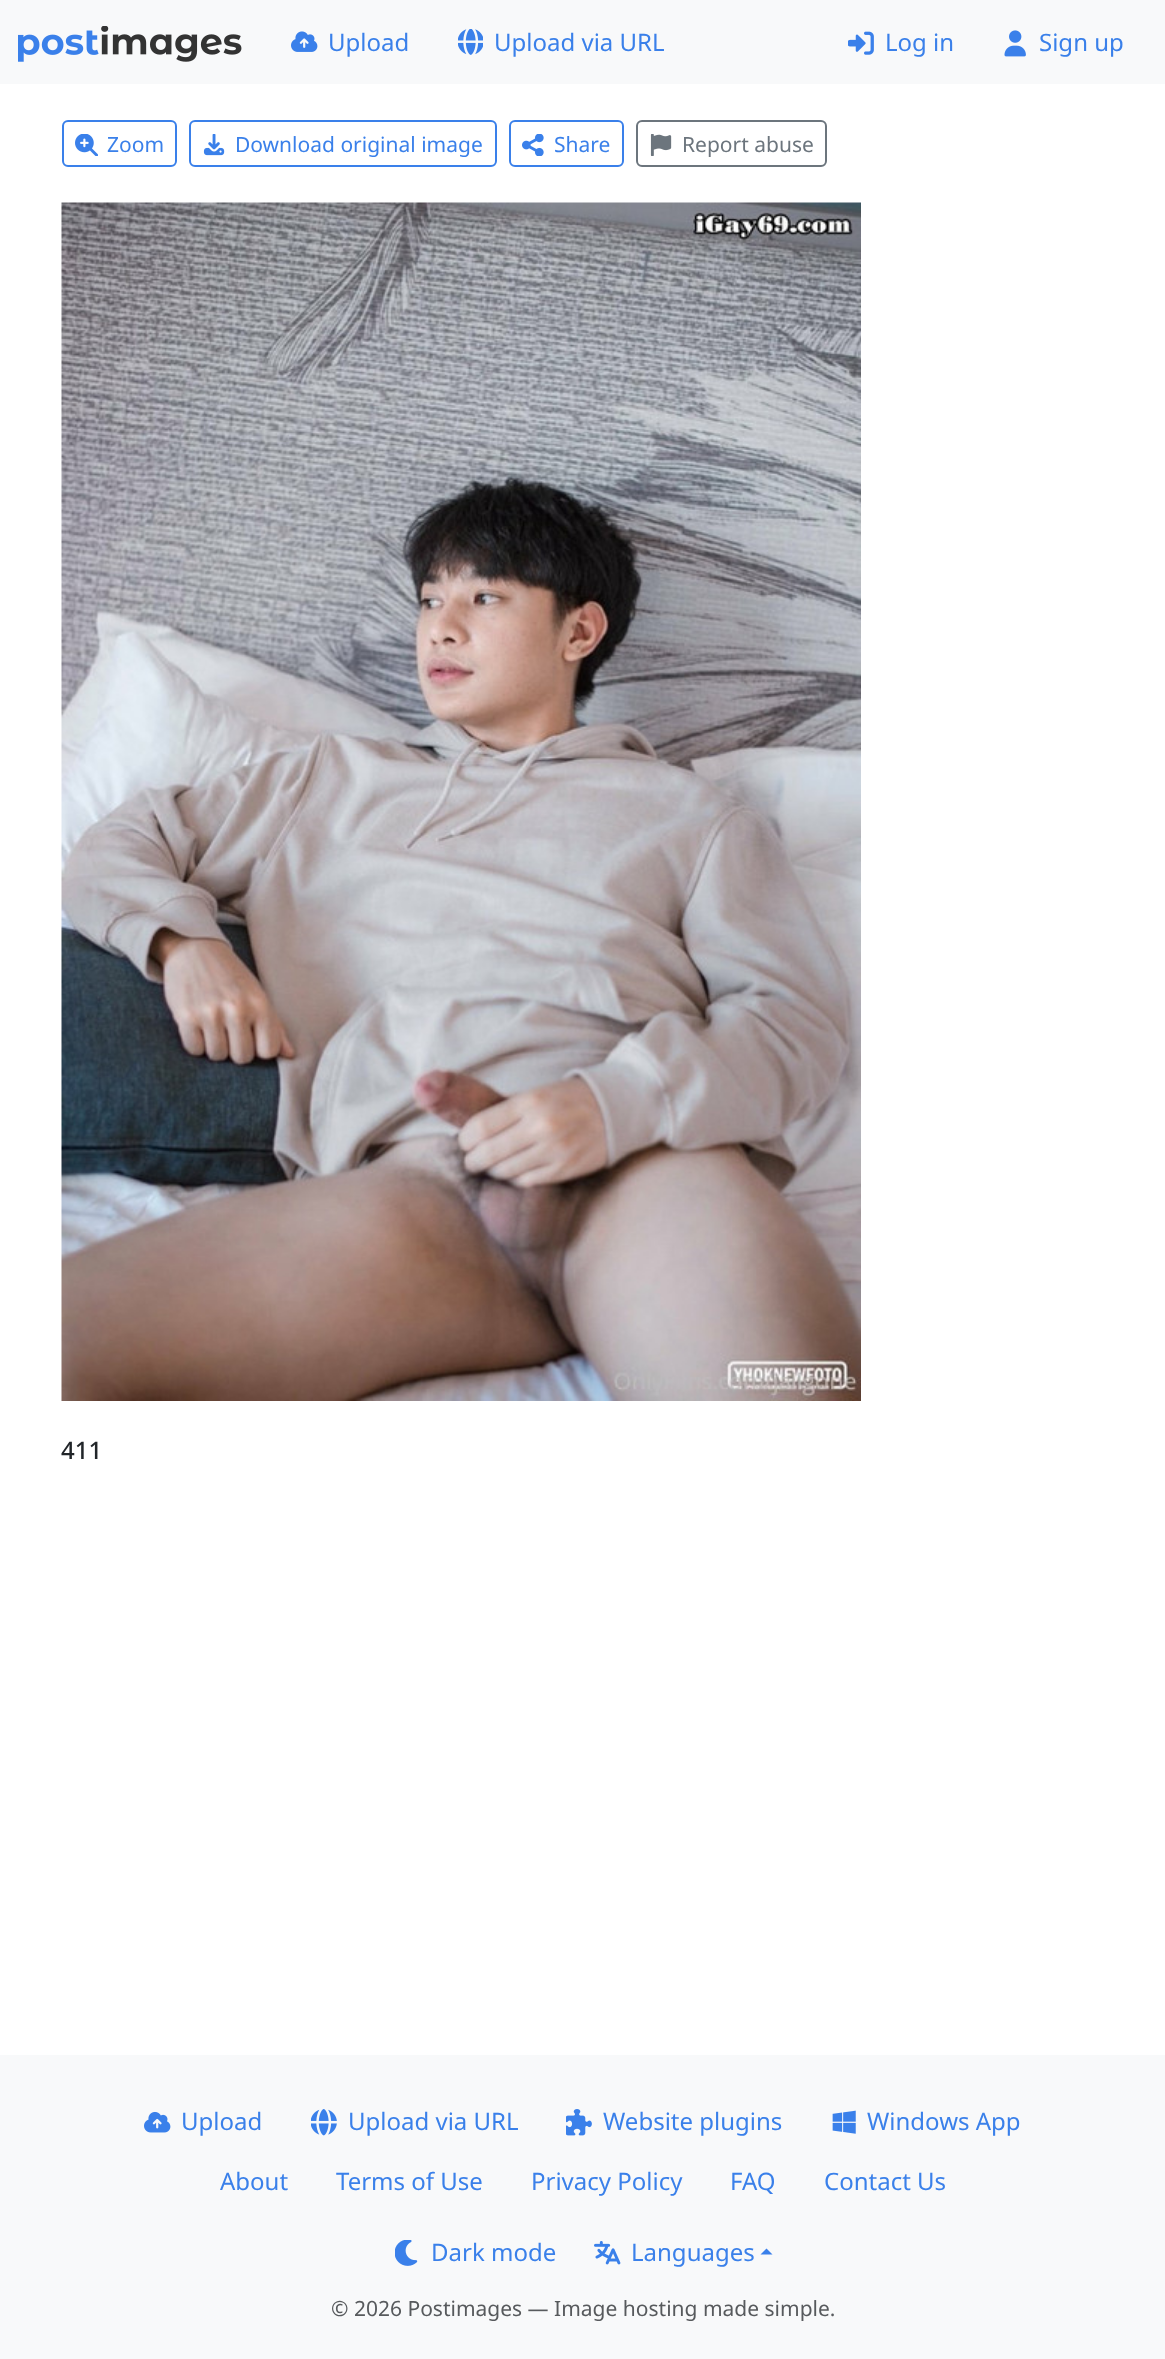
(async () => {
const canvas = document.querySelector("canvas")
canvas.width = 1165
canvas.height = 2359
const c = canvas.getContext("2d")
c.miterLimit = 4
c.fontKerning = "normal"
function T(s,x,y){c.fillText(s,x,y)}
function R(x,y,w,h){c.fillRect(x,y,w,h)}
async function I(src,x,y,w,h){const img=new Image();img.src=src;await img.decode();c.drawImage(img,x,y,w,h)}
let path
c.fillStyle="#fff"
R(0,0,1165,2359)
c.fillStyle="#f8f9fa"
R(0,0,1165,84)
await I("1.png",18,26,224,36)
await I("2.png",291,31,27,21)
c.font="24px Noto Sans"
c.fillStyle="#3a80ea"
T("Upload",328,51)
await I("3.png",458,29,25,26)
T("Upload via URL",494,51)
await I("4.png",848,31,26,24)
T("Log in",885,51)
await I("5.png",1004,30,22,27)
T("Sign up",1039,51)
c.beginPath()
c.roundRect(63,121,113,45,5)
c.strokeStyle="#3a80ea"
c.lineWidth=2
c.stroke()
await I("6.png",75,134,23,22)
c.font="21px Noto Sans"
T("Zoom",107,152)
c.beginPath()
c.roundRect(190,121,306,45,5)
c.stroke()
await I("7.png",203,134,22,22)
T("Download original image",235,152)
c.beginPath()
c.roundRect(510,121,113,45,5)
c.stroke()
await I("8.png",522,134,22,22)
T("Share",554,152)
c.beginPath()
c.roundRect(637,121,189,45,5)
c.strokeStyle="#6c757d"
c.stroke()
await I("9.png",650,134,22,22)
c.fillStyle="#6c757d"
T("Report abuse",682,152)
await I("10.png",61,202,800,1199)
c.font="500 24px Noto Sans"
c.fillStyle="#212529"
T("411",61,1459)
c.fillStyle="#f8f9fa"
R(0,2055,1165,304)
await I("11.png",144,2111,27,22)
c.font="24px Noto Sans"
c.fillStyle="#3a80ea"
T("Upload",181,2130)
await I("12.png",311,2109,26,27)
T("Upload via URL",348,2130)
await I("13.png",566,2109,26,27)
T("Website plugins",603,2130)
await I("14.png",832,2110,24,24)
T("Windows App",867,2130)
T("About",220,2190)
T("Terms of Use",336,2190)
T("Privacy Policy",531,2190)
T("FAQ",730,2190)
T("Contact Us",824,2190)
await I("15.png",395,2240,23,26)
T("Dark mode",431,2261)
await I("16.png",594,2241,27,24)
T("Languages",631,2261)
path = new Path2D("M772.5 2254.5h-12l6-6z")
c.fill(path)
c.font="21px Noto Sans"
c.fillStyle="#575a5d"
T("© 2026 Postimages — Image hosting made simple.",331,2316)
})()
